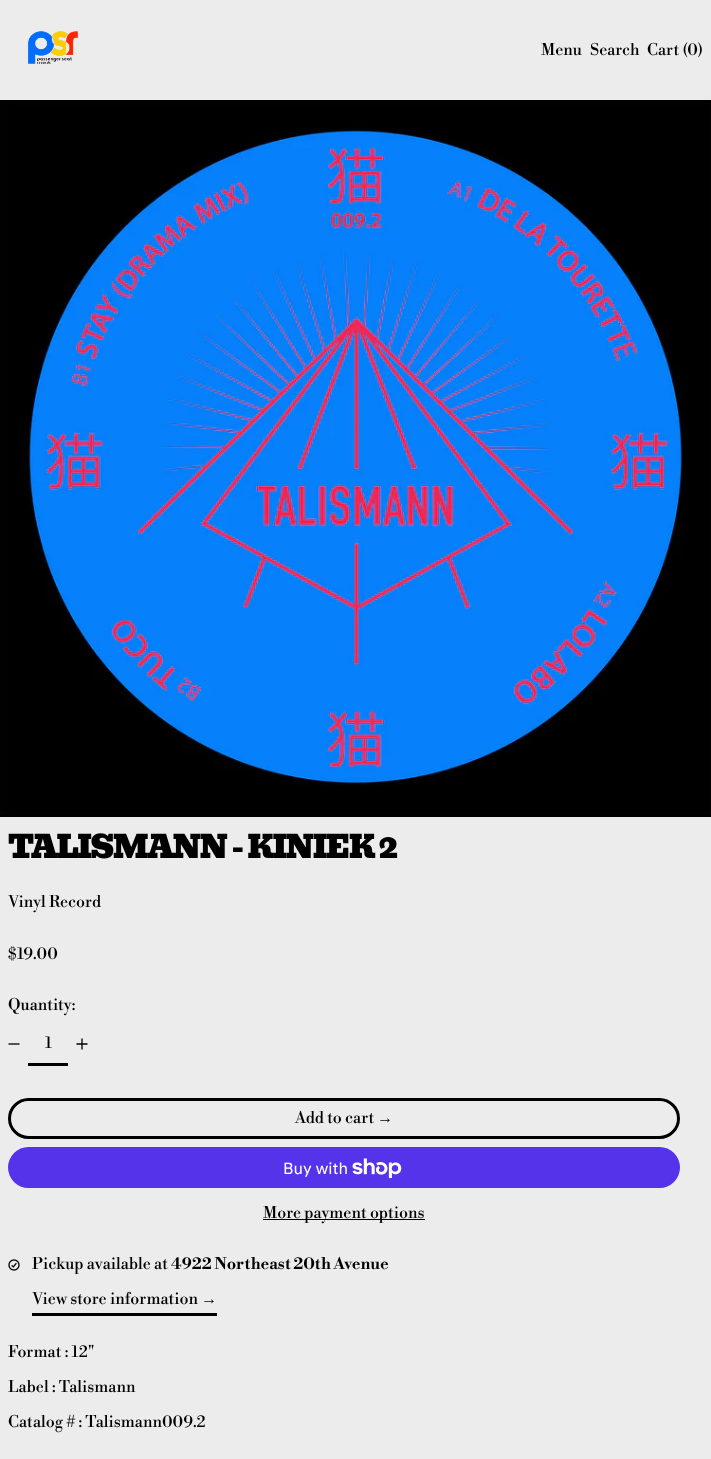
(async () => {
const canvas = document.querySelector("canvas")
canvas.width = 711
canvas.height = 1459
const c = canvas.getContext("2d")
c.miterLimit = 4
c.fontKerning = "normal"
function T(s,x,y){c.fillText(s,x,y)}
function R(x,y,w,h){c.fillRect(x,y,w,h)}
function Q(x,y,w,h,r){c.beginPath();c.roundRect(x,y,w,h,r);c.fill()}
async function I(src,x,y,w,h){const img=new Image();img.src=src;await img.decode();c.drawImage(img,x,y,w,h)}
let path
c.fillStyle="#ececec"
R(0,0,711,1459)
c.fillStyle="#000"
R(0,100,711,3)
await I("1.png",27,31,51,33)
c.font="16px Libre Bodoni"
T("Menu",541,55)
T("Search",590,55)
T("Cart (0)",647,55)
R(0,814,711,3)
await I("2.png",0,103,711,711)
c.letterSpacing="-1.6px"
c.font="31.25px Bevan"
T("TALISMANN - KINIEK 2",8,858)
c.letterSpacing="0px"
c.font="16px Libre Bodoni"
T("Vinyl Record",8,907)
T("$19.00",8,959)
T("Quantity:",8,1010)
path = new Path2D("M8.5 1044h11")
c.strokeStyle="#000"
c.lineWidth=1.3
c.stroke(path)
R(28,1063,40,3)
T("1",45,1048)
path = new Path2D("M82 1038.5v11m-5.5-5.5h11")
c.stroke(path)
c.beginPath()
c.roundRect(9.5,1099.5,669,38,19)
c.lineWidth=3
c.stroke()
T("Add to cart",295,1123)
c.font="16px Liberation Serif"
T("→",377,1123)
c.fillStyle="#5433eb"
Q(8,1147,672,41,20.5)
c.font="16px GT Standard"
c.fillStyle="#fff"
T("Buy with",283,1174)
await I("3.png",352,1158,50,20)
c.fillStyle="#000"
R(263,1219,162,1)
c.font="16px Libre Bodoni"
T("More payment options",263,1218)
await I("4.png",8,1259,12,12)
T("Pickup available at",32,1269)
c.font="bold 16px Libre Bodoni"
T("4922 Northeast 20th Avenue",171,1269)
c.font="16px Libre Bodoni"
T("View store information",32,1304)
c.font="16px Liberation Serif"
T("→",201,1304)
R(32,1313,185,3)
c.font="16px Libre Bodoni"
T("Format : 12\"",8,1357)
T("Label : Talismann",8,1392)
T("Catalog # : Talismann009.2",8,1427)
})()
